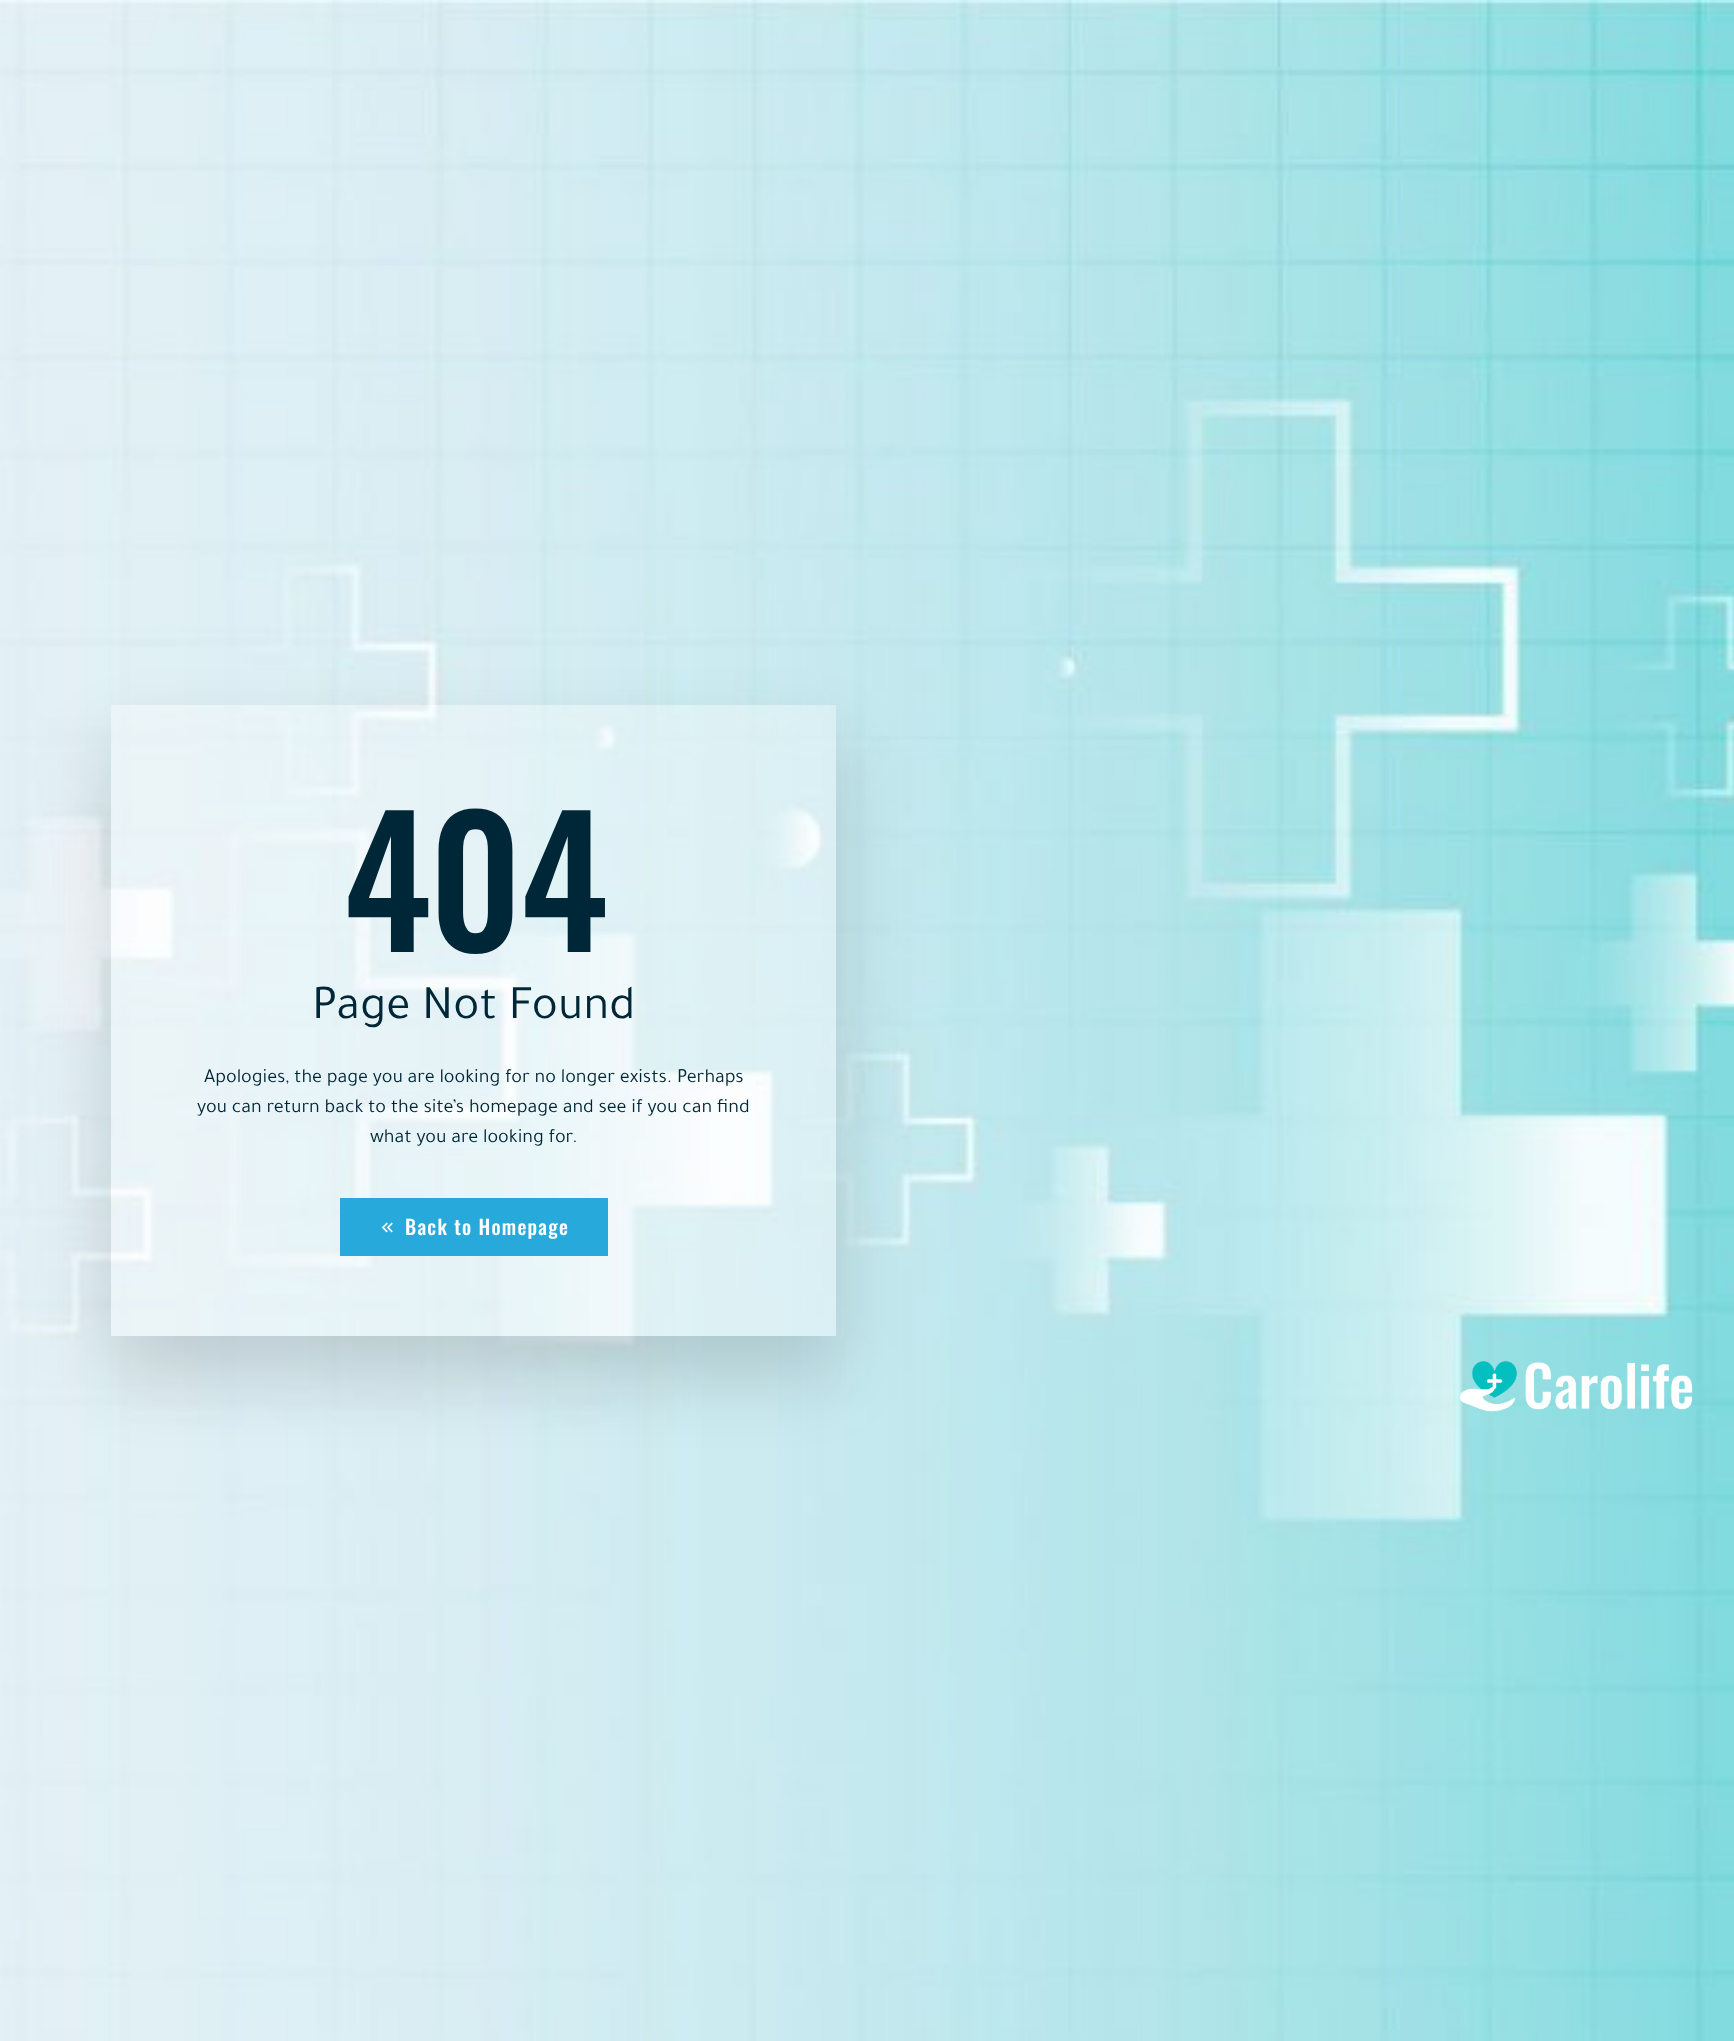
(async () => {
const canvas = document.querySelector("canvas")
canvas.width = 1734
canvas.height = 2041
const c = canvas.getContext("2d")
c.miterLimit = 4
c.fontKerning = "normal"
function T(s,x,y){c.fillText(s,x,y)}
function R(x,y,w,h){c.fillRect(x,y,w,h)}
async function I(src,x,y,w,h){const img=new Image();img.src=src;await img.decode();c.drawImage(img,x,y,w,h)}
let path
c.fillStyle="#fff"
R(0,0,1734,2041)
await I("1.png",0,0,1734,2041)
c.save()
path = new Path2D("M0 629h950v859h-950zm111 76h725v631h-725z")
c.clip(path,"evenodd")
c.fillStyle="#00000026"
c.filter="blur(37.5px)"
c.beginPath()
c.rect(111,743,725,631)
c.fill()
c.filter="none"
c.restore()
c.fillStyle="#ffffff54"
R(111,705,725,631)
c.letterSpacing="-2.5px"
c.font="500 175px Oswald"
c.fillStyle="#002737"
T("404",343,952)
c.letterSpacing="0px"
c.font="48.75px Tajawal"
T("Page Not Found",312,1018)
c.font="20px Tajawal"
T("Apologies, the page you are looking for no longer exists. Perhaps",204,1082)
T("you can return back to the site’s homepage and see if you can find",197,1112)
T("what you are looking for.",370,1142)
c.fillStyle="#27aadb"
R(340,1198,268,58)
await I("2.png",381,1222,12,11)
c.letterSpacing="1.25px"
c.font="500 20px Oswald"
c.fillStyle="#fff"
T("Back to Homepage",405,1235)
await I("3.png",1460,1361,233,51)
})()
